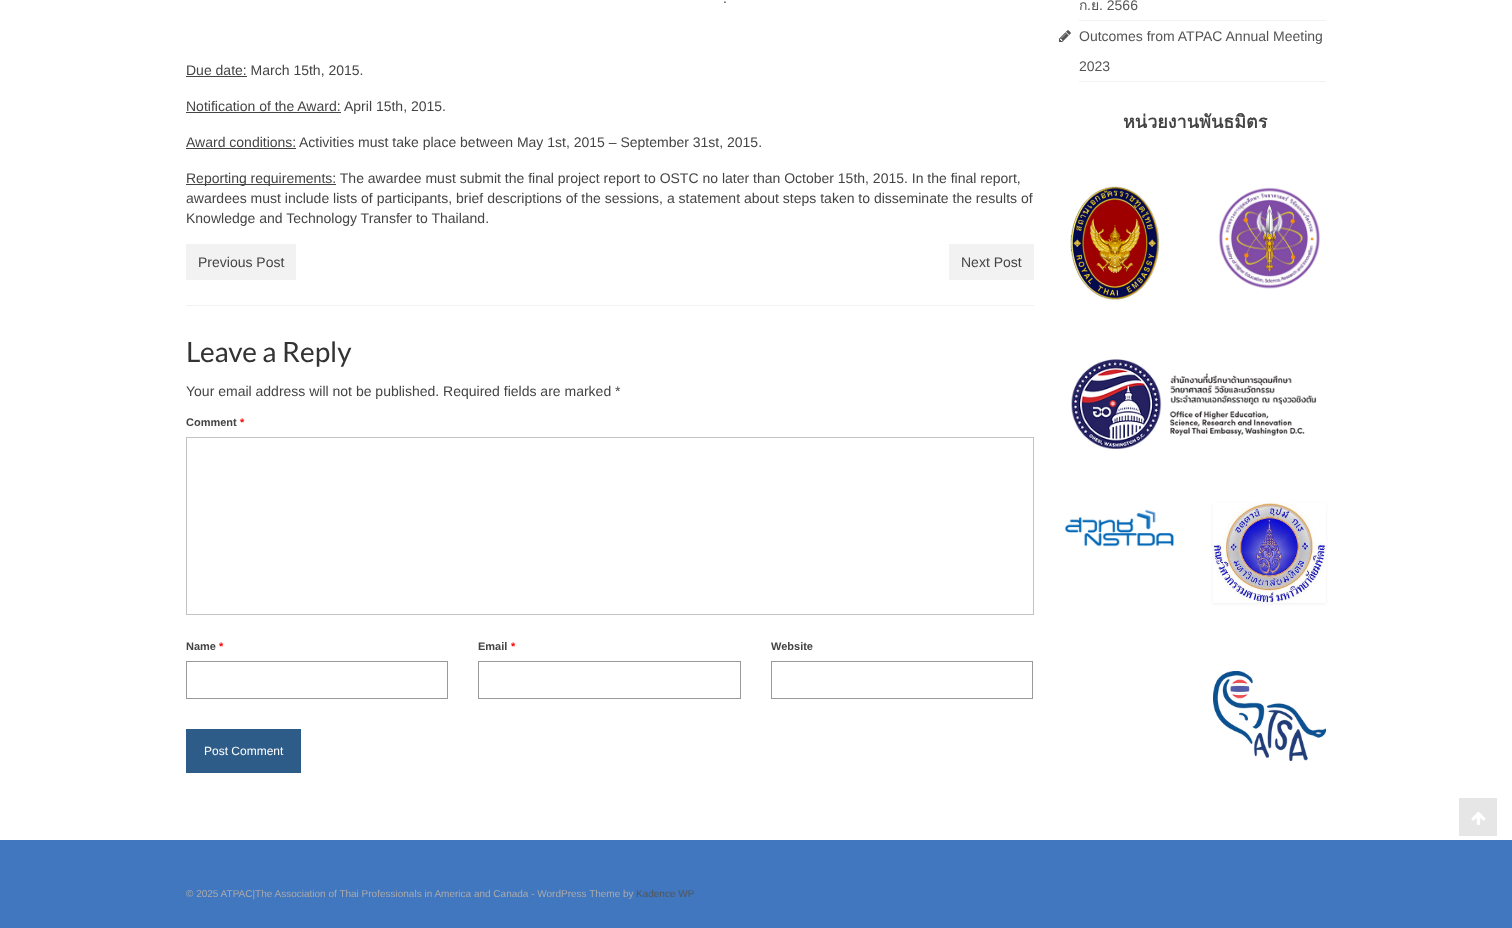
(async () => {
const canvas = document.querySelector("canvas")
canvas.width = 1512
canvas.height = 928
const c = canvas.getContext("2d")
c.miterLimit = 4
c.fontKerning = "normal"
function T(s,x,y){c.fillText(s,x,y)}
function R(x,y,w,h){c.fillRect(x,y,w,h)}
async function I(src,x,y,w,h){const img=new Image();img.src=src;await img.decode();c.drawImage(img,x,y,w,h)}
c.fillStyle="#fff"
R(0,0,1512,928)
c.font="14px Liberation Sans"
c.fillStyle="#444"
T(".",723,3)
R(186,76,61,1)
T("Due date: March 15th, 2015.",186,75)
T("Notification of the Award:",186,111)
R(186,112,155,1)
T("April 15th, 2015.",344,111)
T("Award conditions:",186,147)
R(186,148,110,1)
T("Activities must take place between May 1st, 2015 – September 31st, 2015.",299,147)
R(186,184,150,1)
T("Reporting requirements: The awardee must submit the final project report to OSTC no later than October 15th, 2015. In the final report,",186,183)
T("awardees must include lists of participants, brief descriptions of the sessions, a statement about steps taken to disseminate the results of",186,203)
T("Knowledge and Technology Transfer to Thailand.",186,223)
c.fillStyle="#f2f2f2"
R(186,305,848,1)
R(186,244,110,36)
c.fillStyle="#444"
T("Previous Post",198,267)
c.fillStyle="#f2f2f2"
R(949,244,85,36)
c.fillStyle="#444"
T("Next Post",961,267)
c.font="28px Lato"
c.fillStyle="#333"
T("Leave a Reply",186,362)
c.font="14px Liberation Sans"
c.fillStyle="#444"
T("Your email address will not be published. Required fields are marked *",186,396)
c.font="bold 11px Liberation Sans"
T("Comment",186,426)
c.fillStyle="#f00"
T("*",240,426)
c.strokeStyle="#c3c3c3"
c.strokeRect(186.5,437.5,847,177)
c.fillStyle="#444"
T("Name",186,650)
c.fillStyle="#f00"
T("*",219,650)
c.strokeStyle="#999"
c.strokeRect(186.5,661.5,261,37)
c.fillStyle="#444"
T("Email",478,650)
c.fillStyle="#f00"
T("*",511,650)
c.strokeRect(478.5,661.5,262,37)
c.fillStyle="#444"
T("Website",771,650)
c.strokeRect(771.5,661.5,261,37)
c.fillStyle="#2d5c88"
R(186,729,115,44)
c.font="12px Liberation Sans"
c.fillStyle="#fff"
T("Post Comment",204,755)
c.fillStyle="#f2f2f2"
R(1079,20,247,1)
c.font="14px Loma"
c.fillStyle="#555"
T("ก",1079,10)
c.font="14px Liberation Sans"
T(".",1087,10)
c.font="14px Loma"
T("ย",1091,10)
c.font="14px Liberation Sans"
T(". 2566",1099,10)
c.fillStyle="#f2f2f2"
R(1079,81,247,1)
await I("1.png",1059,30,12,12)
c.fillStyle="#555"
T("Outcomes from ATPAC Annual Meeting",1079,41)
T("2023",1079,71)
c.font="bold 18px Loma"
c.fillStyle="#444"
T("หน่วยงานพันธมิตร",1123,128)
await I("2.png",1070,186,90,114)
await I("3.png",1218,187,102,102)
await I("4.png",1071,359,246,90)
await I("5.png",1064,509,110,38)
c.fillStyle="#0000000f"
c.filter="blur(1.5px)"
c.beginPath()
c.rect(1213,504,113,100)
c.fill()
c.filter="none"
await I("6.png",1213,503,113,100)
await I("7.png",1213,671,113,90)
c.fillStyle="#4177bf"
R(0,840,1512,88)
c.font="10px Liberation Sans"
c.fillStyle="#aaa"
T("© 2025 ATPAC|The Association of Thai Professionals in America and Canada - WordPress Theme by",186,897)
c.fillStyle="#555"
T("Kadence WP",636,897)
c.fillStyle="#e6e6e6"
R(1459,798,38,38)
await I("8.png",1471,812,15,13)
})()
